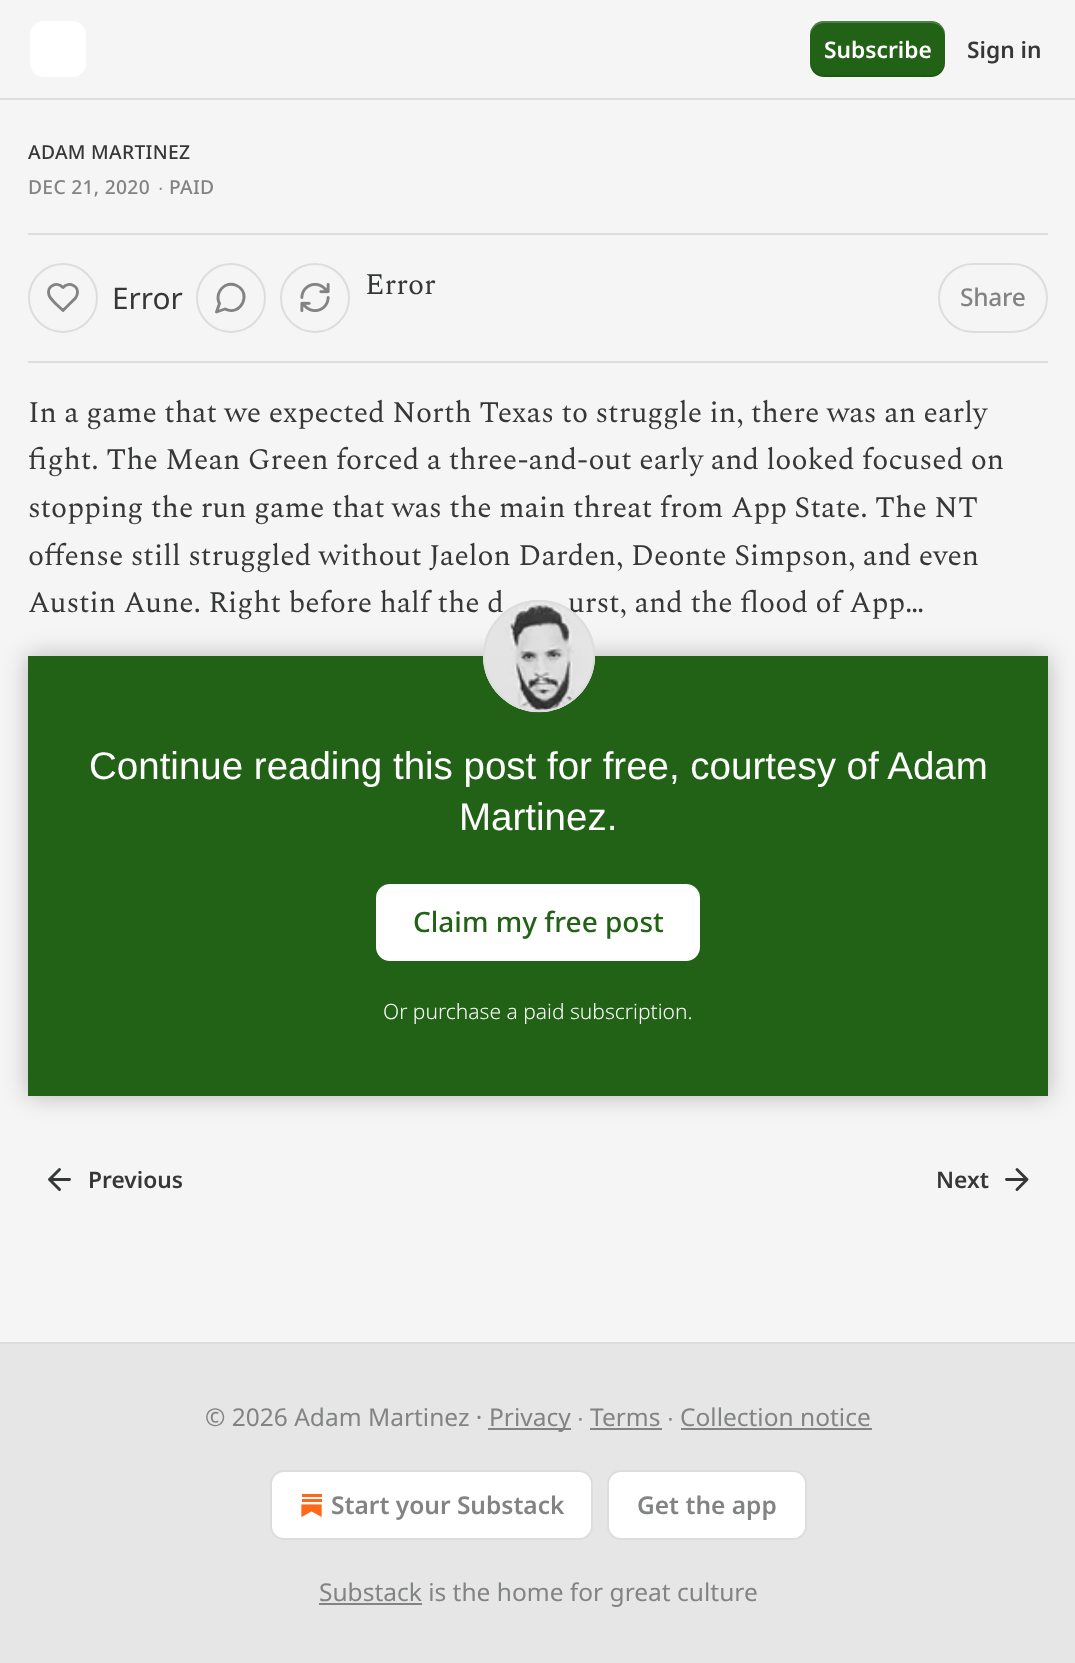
(async () => {
const canvas = document.querySelector("canvas")
canvas.width = 1075
canvas.height = 1663
const c = canvas.getContext("2d")
c.miterLimit = 4
c.fontKerning = "normal"
function T(s,x,y){c.fillText(s,x,y)}
function R(x,y,w,h){c.fillRect(x,y,w,h)}
function Q(x,y,w,h,r){c.beginPath();c.roundRect(x,y,w,h,r);c.fill()}
async function I(src,x,y,w,h){const img=new Image();img.src=src;await img.decode();c.drawImage(img,x,y,w,h)}
let path
c.fillStyle="#f5f5f5"
R(0,0,1075,1663)
c.fillStyle="#ddd"
R(0,98,1075,2)
c.fillStyle="#fff"
Q(30,21,56,56,14)
c.fillStyle="#226216"
Q(810,21,135,56,14)
c.fillStyle="#0000001a"
path = new Path2D("M810 61c0 19 18 16 32 16h71c14 0 32 3 32-16c0 8-6 14-14 14h-107c-7 0-14-6-14-14z")
c.fill(path)
c.fillStyle="#ffffff33"
path = new Path2D("M824 23h107c8 0 14 6 14 14c0-19-18-16-32-16h-71c-14 0-32-3-32 16c0-8 7-14 14-14z")
c.fill(path)
c.font="600 22.75px Noto Sans"
c.fillStyle="#fff"
T("Subscribe",824,58)
c.fillStyle="#363737"
T("Sign in",967,58)
c.letterSpacing="0.3px"
c.font="500 19.25px Noto Sans"
T("ADAM MARTINEZ",28,159)
c.fillStyle="#828383"
T("DEC 21, 2020",28,194)
c.font="19.25px Liberation Sans"
T("∙",158,194)
c.font="500 19.25px Noto Sans"
T("PAID",169,194)
c.fillStyle="#ddd"
R(28,233,1020,2)
R(28,361,1020,2)
c.beginPath()
c.arc(231,298,34,0,7)
c.strokeStyle="#ddd"
c.lineWidth=2
c.stroke()
path = new Path2D("M225 309c15.5 8 27.5-16 11.5-23.5c-3.5-1.5-7.5-1.5-11 0c-6.5 3.5-9.5 11.5-6 18l-3 8.5z")
c.strokeStyle="#828383"
c.lineWidth=2.9
c.lineCap="round"
c.lineJoin="round"
c.stroke(path)
c.beginPath()
c.arc(315,298,34,0,7)
c.strokeStyle="#ddd"
c.lineWidth=2
c.stroke()
await I("1.png",300,282,30,30)
c.letterSpacing="0px"
c.font="29.75px Spectral"
c.fillStyle="#363737"
T("Error",365,294)
c.beginPath()
c.arc(63,298,34,0,7)
c.stroke()
path = new Path2D("M73 300.5c2-1.5 3.5-3.5 4-5.5c3-9-8-14-14-7.5c-6-6.5-17-1.5-14 7.5c1 3.5 4.5 6 7 9l7 6.5z")
c.strokeStyle="#828383"
c.lineWidth=2.9
c.stroke(path)
c.font="29.75px Noto Sans"
T("Error",112,309)
c.beginPath()
c.roundRect(939,264,108,68,34)
c.strokeStyle="#ddd"
c.lineWidth=2
c.lineJoin="miter"
c.stroke()
c.letterSpacing="-0.25px"
c.font="500 24.5px Noto Sans"
c.fillStyle="#828383"
T("Share",960,306)
c.letterSpacing="0px"
c.font="29.75px Spectral"
c.fillStyle="#363737"
T("In a game that we expected North Texas to struggle in, there was an early",28,422)
T("fight. The Mean Green forced a three-and-out early and looked focused on",28,469)
T("stopping the run game that was the main threat from App State. The NT",28,517)
T("offense still struggled without Jaelon Darden, Deonte Simpson, and even",28,565)
T("Austin Aune. Right before half the d",28,612)
T("urst, and the flood of App…",568,612)
c.fillStyle="#226216"
R(28,656,1020,440)
c.fillStyle="#fff"
c.beginPath()
c.roundRect(377,885,322,75,13)
c.fill()
c.strokeStyle="#fff"
c.stroke()
c.save()
path = new Path2D("M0 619h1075v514h-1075zm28 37h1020v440h-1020z")
c.clip(path,"evenodd")
c.fillStyle="#00000040"
c.filter="blur(12px)"
c.beginPath()
c.rect(28,656,1020,440)
c.fill()
c.filter="none"
c.restore()
c.beginPath()
c.arc(539,656,55,0,7)
c.strokeStyle="#ddd"
c.stroke()
await I("2.png",483,601,112,112)
c.beginPath()
c.arc(539,656,55,0,7)
c.stroke()
c.font="38.5px Liberation Sans"
T("Continue reading this post for free, courtesy of Adam",89,779)
T("Martinez.",459,830)
c.font="500 28px Noto Sans"
c.fillStyle="#226216"
T("Claim my free post",413,932)
c.font="300 21px Noto Sans"
c.fillStyle="#fff"
T("Or purchase a paid subscription.",383,1019)
path = new Path2D("M59.5 1189.5l-10-10l10-10m10 10h-20")
c.strokeStyle="#363737"
c.lineWidth=2.9
c.lineJoin="round"
c.stroke(path)
c.font="600 22.75px Noto Sans"
c.fillStyle="#363737"
T("Previous",88,1188)
T("Next",936,1188)
path = new Path2D("M1006.5 1179.5h20.5m-10-10l10 10l-10 10")
c.stroke(path)
c.fillStyle="#e6e6e6"
R(0,1344,1075,319)
c.fillStyle="#ddd"
R(0,1342,1075,2)
c.font="24.5px Noto Sans"
c.fillStyle="#828383"
T("© 2026 Adam Martinez ·",205,1426)
R(488,1428,83,2)
T("Privacy",489,1426)
c.font="24.5px Liberation Sans"
T("∙",577,1426)
c.font="24.5px Noto Sans"
T("Terms",590,1426)
R(590,1428,72,2)
c.font="24.5px Liberation Sans"
T("∙",667,1426)
c.font="24.5px Noto Sans"
T("Collection notice",680,1426)
R(681,1428,191,2)
c.fillStyle="#fff"
c.beginPath()
c.roundRect(271,1471,321,68,13)
c.fill()
c.strokeStyle="#ddd"
c.lineWidth=2
c.lineJoin="miter"
c.stroke()
await I("3.png",301,1494,21,23)
c.font="600 24.5px Noto Sans"
c.fillStyle="#828383"
T("Start your Substack",331,1514)
c.fillStyle="#fff"
c.beginPath()
c.roundRect(608,1471,198,68,13)
c.fill()
c.stroke()
c.fillStyle="#828383"
T("Get the app",637,1514)
R(319,1603,103,2)
c.font="24.5px Noto Sans"
T("Substack is the home for great culture",319,1601)
})()
